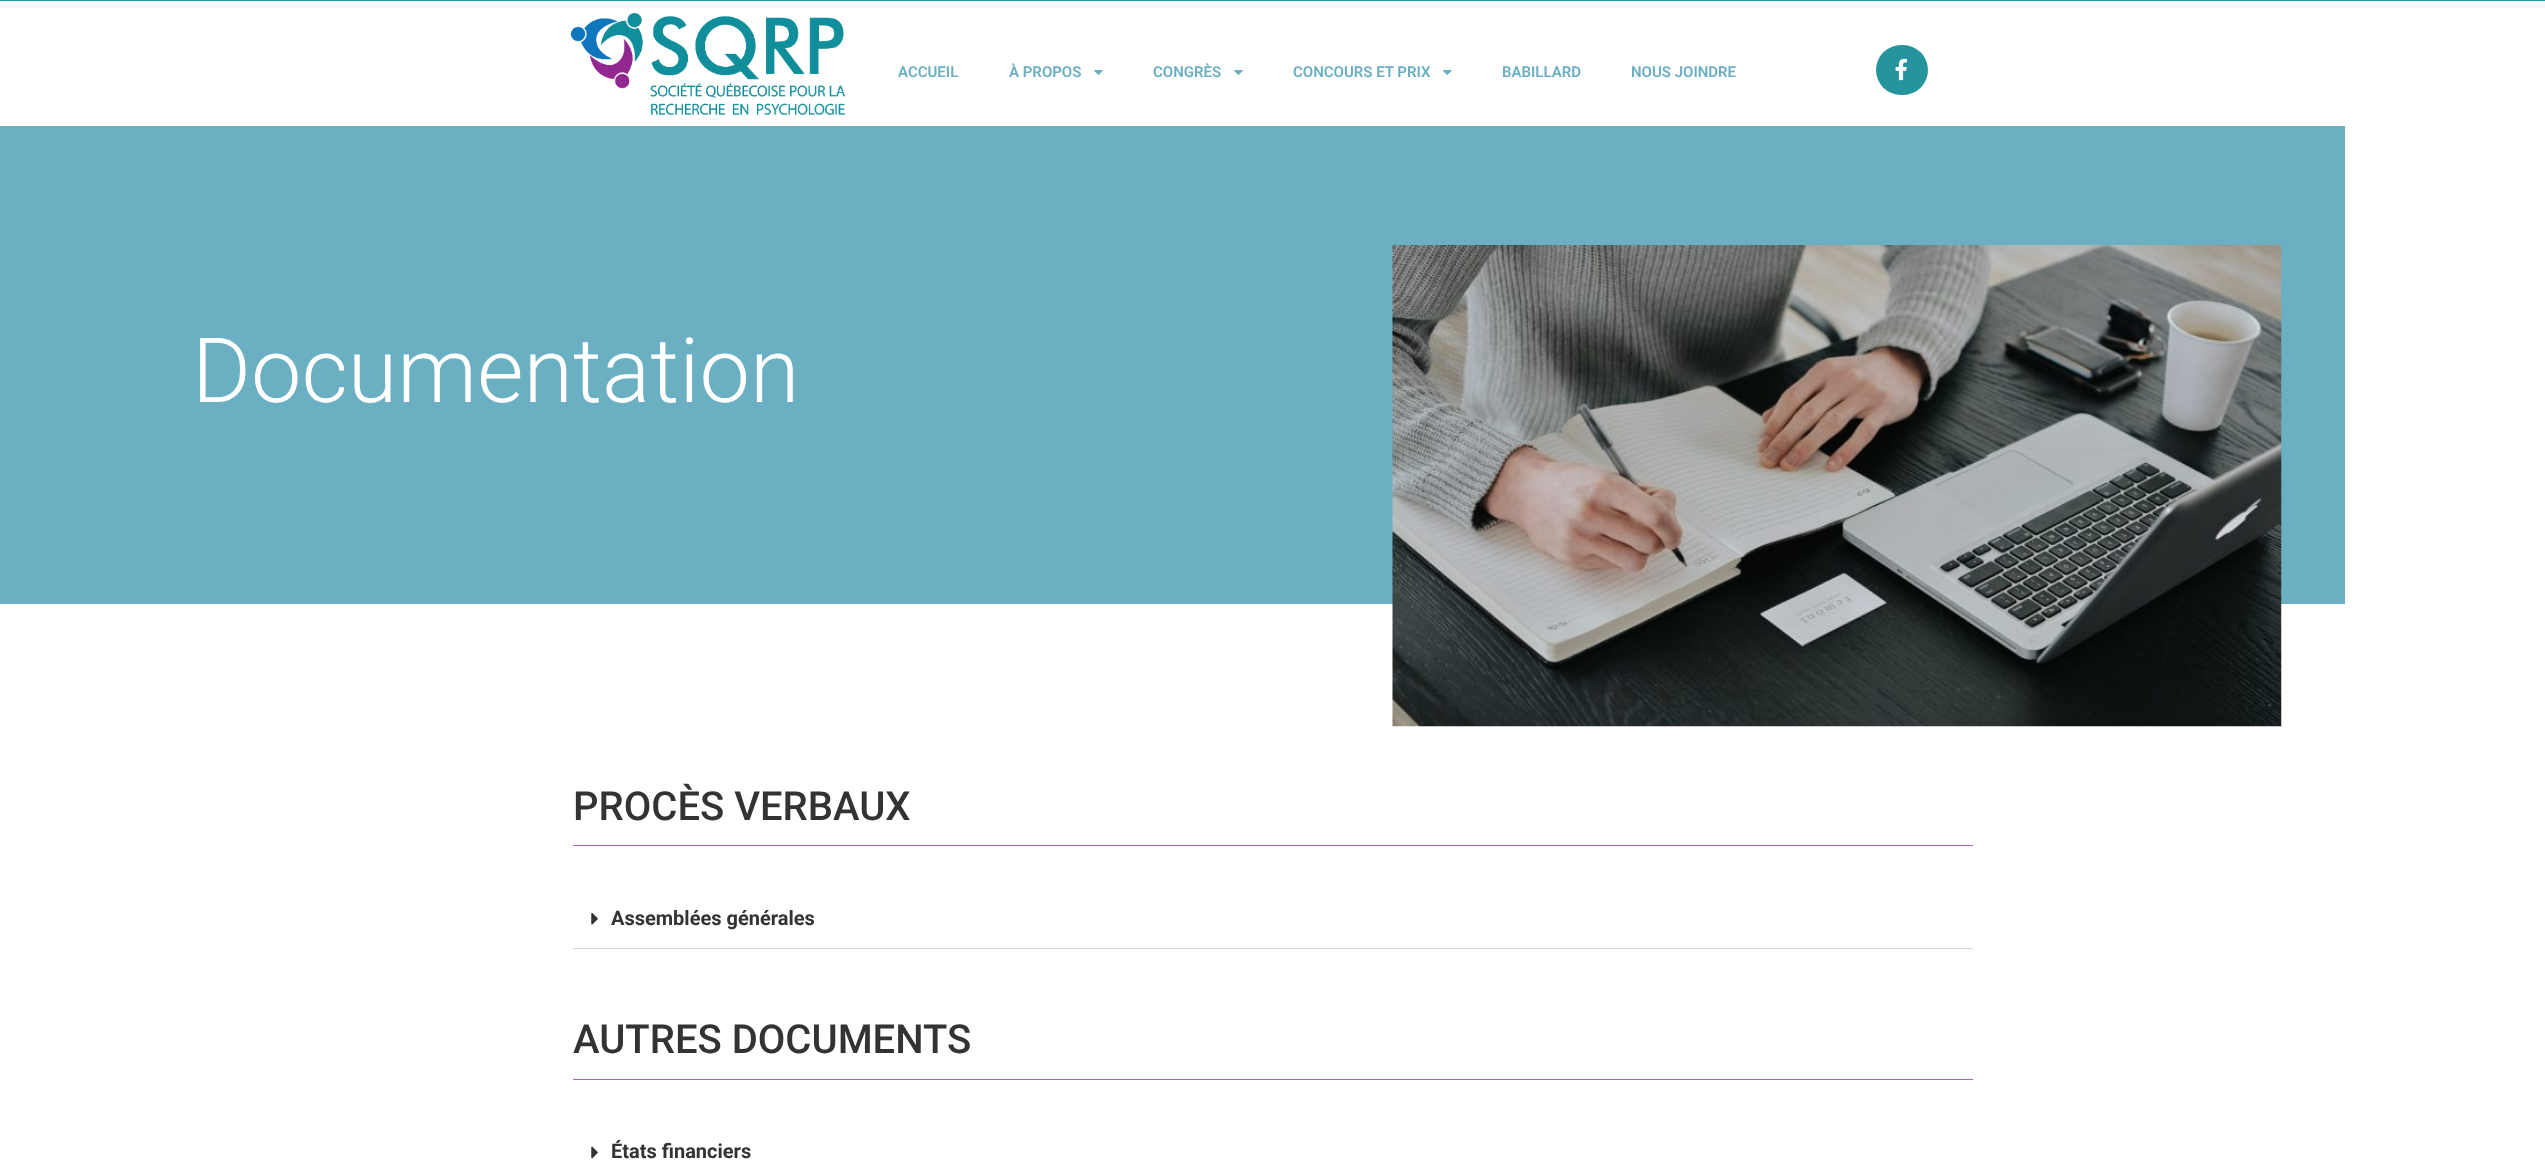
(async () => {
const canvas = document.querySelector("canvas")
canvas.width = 2545
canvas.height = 1163
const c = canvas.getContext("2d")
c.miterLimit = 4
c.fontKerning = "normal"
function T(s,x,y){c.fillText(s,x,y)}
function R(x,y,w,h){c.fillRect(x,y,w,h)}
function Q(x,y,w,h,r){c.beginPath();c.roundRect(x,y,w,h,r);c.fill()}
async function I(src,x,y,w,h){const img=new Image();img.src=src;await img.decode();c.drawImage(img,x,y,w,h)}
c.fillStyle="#fff"
R(0,0,2545,1163)
c.fillStyle="#25949d"
R(0,0,2545,1)
await I("1.png",570,12,276,104)
c.font="600 15px Roboto"
c.fillStyle="#6aafc2"
T("ACCUEIL",898,77)
T("À PROPOS",1009,77)
await I("2.png",1094,70,9,5)
T("CONGRÈS",1153,77)
await I("2.png",1234,70,9,5)
T("CONCOURS ET PRIX",1293,77)
await I("3.png",1442,70,10,5)
T("BABILLARD",1502,77)
T("NOUS JOINDRE",1631,77)
c.fillStyle="#25949d"
Q(1876,45,52,50,25)
await I("4.png",1895,58,12,23)
c.fillStyle="#6aafc2"
R(0,126,2345,478)
c.font="300 90px Roboto"
c.fillStyle="#fff"
T("Documentation",192,402)
await I("5.png",1392,245,890,482)
c.font="500 40px Roboto"
c.fillStyle="#333"
T("PROCÈS VERBAUX",573,820)
c.fillStyle="#a467b4"
R(573,845,1400,1)
c.fillStyle="#d5d8dc"
R(573,948,1400,1)
await I("6.png",591,913,7,12)
c.font="bold 20px Roboto"
c.fillStyle="#333"
T("Assemblées générales",611,925)
c.font="500 40px Roboto"
T("AUTRES DOCUMENTS",573,1053)
c.fillStyle="#a467b4"
R(573,1079,1400,1)
await I("7.png",591,1146,7,13)
c.font="bold 20px Roboto"
c.fillStyle="#333"
T("États financiers",611,1158)
})()
